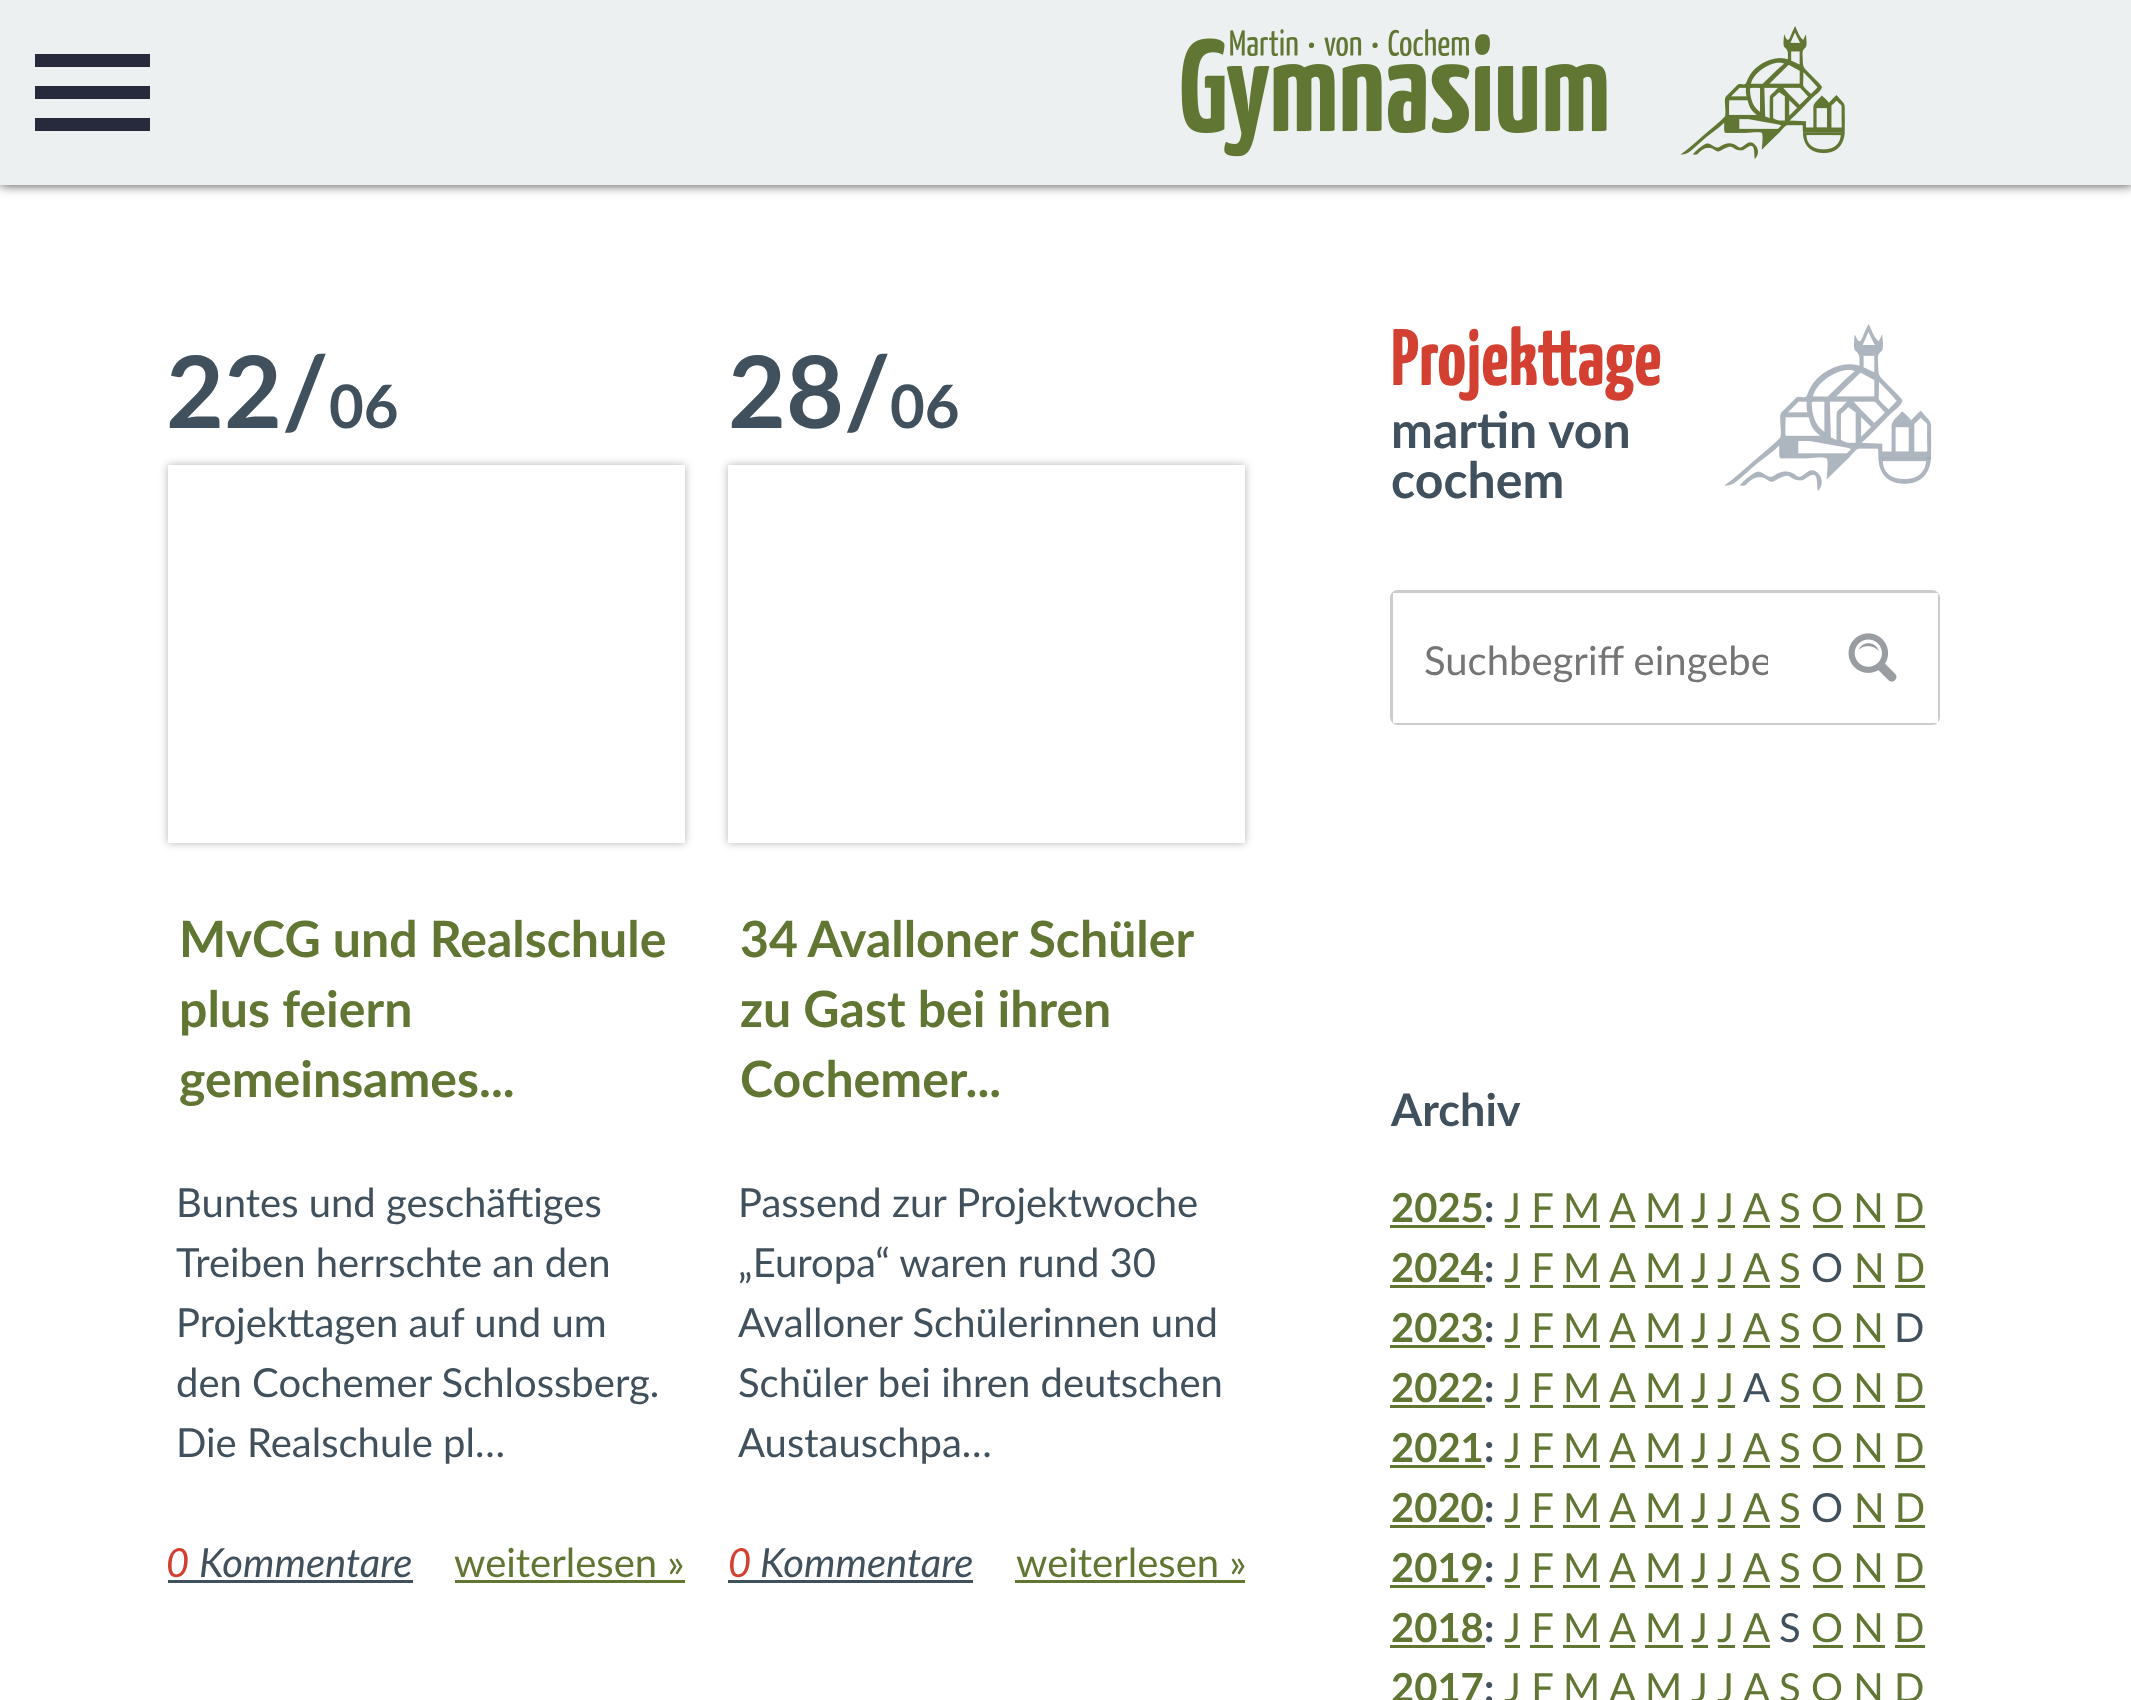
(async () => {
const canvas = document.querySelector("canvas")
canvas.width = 2131
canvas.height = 1700
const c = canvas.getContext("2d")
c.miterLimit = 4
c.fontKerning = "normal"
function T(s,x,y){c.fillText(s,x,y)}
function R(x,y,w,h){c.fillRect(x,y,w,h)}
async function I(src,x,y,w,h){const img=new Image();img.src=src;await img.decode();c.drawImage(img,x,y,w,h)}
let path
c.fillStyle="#fff"
R(0,0,2131,1700)
c.fillStyle="#000000bf"
c.filter="blur(6px)"
c.beginPath()
c.rect(0,0,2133,185)
c.fill()
c.filter="none"
c.fillStyle="#ecf0f1"
R(0,0,2131,185)
c.fillStyle="#27293d"
path = new Path2D("M35 131h115v-13h-115zm0-32h115v-13h-115zm0-45v13h115v-13z")
c.fill(path)
await I("1.png",1181,29,426,128)
await I("2.png",1680,26,165,133)
c.font="bold 100px Lato"
c.fillStyle="#41505d"
T("22/",166,428)
c.font="bold 60px Lato"
T("06",329,428)
c.save()
path = new Path2D("M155 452h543v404h-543zm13 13h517v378h-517z")
c.clip(path,"evenodd")
c.fillStyle="#0000004d"
c.filter="blur(4px)"
c.beginPath()
c.rect(168,465,517,378)
c.fill()
c.filter="none"
c.restore()
c.strokeStyle="#fff"
c.lineWidth=25
c.strokeRect(180.5,477.5,492,353)
c.font="bold 50px Lato"
c.fillStyle="#617632"
T("MvCG und Realschule",179,957)
T("plus feiern",179,1027)
T("gemeinsames...",179,1097)
c.font="40px Lato"
c.fillStyle="#41505d"
T("Buntes und geschäftiges",176,1217)
T("Treiben herrschte an den",176,1277)
T("Projekttagen auf und um",176,1337)
T("den Cochemer Schlossberg.",176,1397)
T("Die Realschule pl…",176,1457)
c.font="italic 40px Lato"
c.fillStyle="#d34031"
T("0",166,1577)
c.fillStyle="#41505d"
R(168,1580,245,3)
T("Kommentare",199,1577)
c.font="40px Lato"
c.fillStyle="#617632"
T("weiterlesen »",454,1577)
R(455,1580,230,3)
c.font="bold 100px Lato"
c.fillStyle="#41505d"
T("28/",728,428)
c.font="bold 60px Lato"
T("06",890,428)
c.save()
path = new Path2D("M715 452h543v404h-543zm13 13h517v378h-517z")
c.clip(path,"evenodd")
c.fillStyle="#0000004d"
c.filter="blur(4px)"
c.beginPath()
c.rect(728,465,517,378)
c.fill()
c.filter="none"
c.restore()
c.strokeRect(740.5,477.5,492,353)
c.wordSpacing="-1px"
c.font="bold 50px Lato"
c.fillStyle="#617632"
T("34 Avalloner Schüler",740,957)
c.wordSpacing="0px"
T("zu Gast bei ihren",740,1027)
T("Cochemer...",740,1097)
c.font="40px Lato"
c.fillStyle="#41505d"
T("Passend zur Projektwoche",738,1217)
T("„Europa“ waren rund 30",738,1277)
T("Avalloner Schülerinnen und",738,1337)
T("Schüler bei ihren deutschen",738,1397)
T("Austauschpa…",738,1457)
c.font="italic 40px Lato"
c.fillStyle="#d34031"
T("0",728,1577)
c.fillStyle="#41505d"
R(728,1580,245,3)
T("Kommentare",760,1577)
c.font="40px Lato"
c.fillStyle="#617632"
T("weiterlesen »",1016,1577)
R(1015,1580,230,3)
c.font="bold 80px Yanone Kaffeesatz"
c.fillStyle="#d34031"
T("Projekttage",1391,385)
c.font="bold 50px Lato"
c.fillStyle="#41505d"
T("martin von",1391,448)
T("cochem",1391,498)
await I("3.png",1724,324,208,167)
c.beginPath()
c.roundRect(1391.5,591.5,547,132,6.5)
c.strokeStyle="#ccc"
c.lineWidth=3
c.stroke()
c.fillStyle="#fff"
R(1393,593,415,130)
c.save()
c.beginPath()
c.rect(1423,635,345,48)
c.clip()
c.font="40px Lato"
c.fillStyle="#757575"
T("Suchbegriff eingebe",1424,675)
c.restore()
R(1808,593,130,130)
await I("4.png",1848,633,49,49)
c.font="bold 45px Lato"
c.fillStyle="#41505d"
T("Archiv",1391,1126)
c.font="bold 40px Lato"
c.fillStyle="#617632"
T("2025",1391,1222)
c.fillStyle="#41505d"
T(":",1484,1222)
c.fillStyle="#617632"
R(1390,1225,95,3)
c.font="40px Lato"
T("J F",1504,1222)
R(1505,1225,15,3)
T("M",1563,1222)
R(1563,1225,37,3)
T("A",1609,1222)
R(1610,1225,25,3)
T("M",1645,1222)
R(1645,1225,38,3)
T("J",1691,1222)
R(1693,1225,15,3)
T("J",1717,1222)
R(1718,1225,17,3)
T("A",1743,1222)
R(1743,1225,27,3)
T("S O N D",1779,1222)
R(1780,1225,20,3)
R(1530,1225,23,3)
R(1813,1225,30,3)
R(1853,1225,32,3)
R(1895,1225,30,3)
c.font="bold 40px Lato"
T("2024",1391,1282)
c.fillStyle="#41505d"
T(":",1484,1282)
c.fillStyle="#617632"
R(1390,1285,95,3)
c.font="40px Lato"
T("J F",1504,1282)
R(1505,1285,15,3)
T("M",1563,1282)
R(1563,1285,37,3)
T("A",1609,1282)
R(1610,1285,25,3)
T("M",1645,1282)
R(1645,1285,38,3)
T("J",1691,1282)
R(1693,1285,15,3)
T("J",1717,1282)
R(1718,1285,17,3)
T("A",1743,1282)
R(1743,1285,27,3)
T("S",1779,1282)
R(1780,1285,20,3)
c.fillStyle="#41505d"
T("O",1811,1282)
c.fillStyle="#617632"
T("N D",1854,1282)
R(1853,1285,32,3)
R(1530,1285,23,3)
R(1895,1285,30,3)
c.font="bold 40px Lato"
T("2023",1391,1342)
c.fillStyle="#41505d"
T(":",1484,1342)
c.fillStyle="#617632"
R(1390,1345,95,3)
c.font="40px Lato"
T("J F",1504,1342)
R(1505,1345,15,3)
T("M",1563,1342)
R(1563,1345,37,3)
T("A",1609,1342)
R(1610,1345,25,3)
T("M",1645,1342)
R(1645,1345,38,3)
T("J",1691,1342)
R(1693,1345,15,3)
T("J",1717,1342)
R(1718,1345,17,3)
T("A",1743,1342)
R(1743,1345,27,3)
T("S O N",1779,1342)
R(1780,1345,20,3)
c.fillStyle="#41505d"
T("D",1894,1342)
c.fillStyle="#617632"
R(1530,1345,23,3)
R(1813,1345,30,3)
R(1853,1345,32,3)
c.font="bold 40px Lato"
T("2022",1391,1402)
c.fillStyle="#41505d"
T(":",1484,1402)
c.fillStyle="#617632"
R(1390,1405,95,3)
c.font="40px Lato"
T("J F",1504,1402)
R(1505,1405,15,3)
T("M",1563,1402)
R(1563,1405,37,3)
T("A",1609,1402)
R(1610,1405,25,3)
T("M",1645,1402)
R(1645,1405,38,3)
T("J",1691,1402)
R(1693,1405,15,3)
T("J",1717,1402)
R(1718,1405,17,3)
c.fillStyle="#41505d"
T("A",1743,1402)
c.fillStyle="#617632"
T("S O N D",1779,1402)
R(1780,1405,20,3)
R(1530,1405,23,3)
R(1813,1405,30,3)
R(1853,1405,32,3)
R(1895,1405,30,3)
c.font="bold 40px Lato"
T("2021",1391,1462)
c.fillStyle="#41505d"
T(":",1484,1462)
c.fillStyle="#617632"
R(1390,1465,95,3)
c.font="40px Lato"
T("J F",1504,1462)
R(1505,1465,15,3)
T("M",1563,1462)
R(1563,1465,37,3)
T("A",1609,1462)
R(1610,1465,25,3)
T("M",1645,1462)
R(1645,1465,38,3)
T("J",1691,1462)
R(1693,1465,15,3)
T("J",1717,1462)
R(1718,1465,17,3)
T("A",1743,1462)
R(1743,1465,27,3)
T("S O N D",1779,1462)
R(1780,1465,20,3)
R(1530,1465,23,3)
R(1813,1465,30,3)
R(1853,1465,32,3)
R(1895,1465,30,3)
c.font="bold 40px Lato"
T("2020",1391,1522)
c.fillStyle="#41505d"
T(":",1484,1522)
c.fillStyle="#617632"
R(1390,1525,95,3)
c.font="40px Lato"
T("J F",1504,1522)
R(1505,1525,15,3)
T("M",1563,1522)
R(1563,1525,37,3)
T("A",1609,1522)
R(1610,1525,25,3)
T("M",1645,1522)
R(1645,1525,38,3)
T("J",1691,1522)
R(1693,1525,15,3)
T("J",1717,1522)
R(1718,1525,17,3)
T("A",1743,1522)
R(1743,1525,27,3)
T("S",1779,1522)
R(1780,1525,20,3)
c.fillStyle="#41505d"
T("O",1811,1522)
c.fillStyle="#617632"
T("N D",1854,1522)
R(1853,1525,32,3)
R(1530,1525,23,3)
R(1895,1525,30,3)
c.font="bold 40px Lato"
T("2019",1391,1582)
c.fillStyle="#41505d"
T(":",1484,1582)
c.fillStyle="#617632"
R(1390,1585,95,3)
c.font="40px Lato"
T("J F",1504,1582)
R(1505,1585,15,3)
T("M",1563,1582)
R(1563,1585,37,3)
T("A",1609,1582)
R(1610,1585,25,3)
T("M",1645,1582)
R(1645,1585,38,3)
T("J",1691,1582)
R(1693,1585,15,3)
T("J",1717,1582)
R(1718,1585,17,3)
T("A",1743,1582)
R(1743,1585,27,3)
T("S O N D",1779,1582)
R(1780,1585,20,3)
R(1530,1585,23,3)
R(1813,1585,30,3)
R(1853,1585,32,3)
R(1895,1585,30,3)
c.font="bold 40px Lato"
T("2018",1391,1642)
c.fillStyle="#41505d"
T(":",1484,1642)
c.fillStyle="#617632"
R(1390,1645,95,3)
c.font="40px Lato"
T("J F",1504,1642)
R(1505,1645,15,3)
T("M",1563,1642)
R(1563,1645,37,3)
T("A",1609,1642)
R(1610,1645,25,3)
T("M",1645,1642)
R(1645,1645,38,3)
T("J",1691,1642)
R(1693,1645,15,3)
T("J",1717,1642)
R(1718,1645,17,3)
T("A",1743,1642)
R(1743,1645,27,3)
c.fillStyle="#41505d"
T("S",1779,1642)
c.fillStyle="#617632"
T("O N D",1811,1642)
R(1813,1645,30,3)
R(1530,1645,23,3)
R(1853,1645,32,3)
R(1895,1645,30,3)
c.font="bold 40px Lato"
T("2017",1391,1702)
c.fillStyle="#41505d"
T(":",1484,1702)
c.font="40px Lato"
c.fillStyle="#617632"
T("J F",1504,1702)
T("M",1563,1702)
T("A",1609,1702)
T("M",1645,1702)
T("J",1691,1702)
T("J",1717,1702)
T("A",1743,1702)
T("S O N D",1779,1702)
})()
